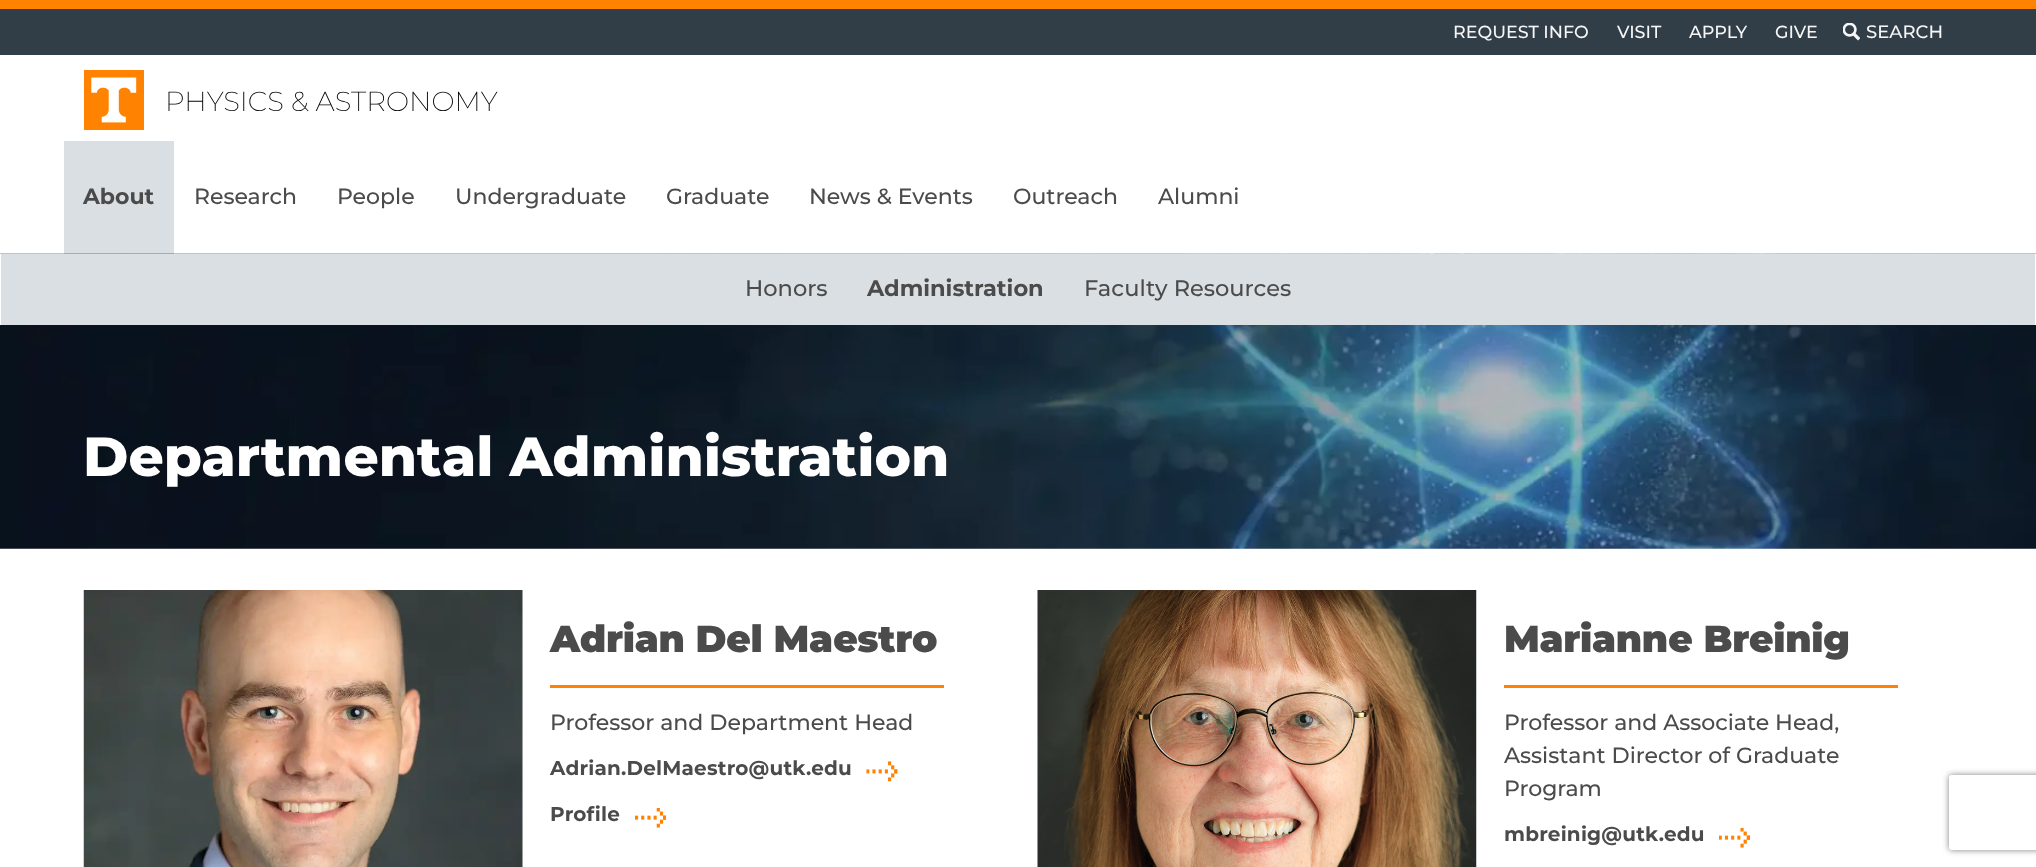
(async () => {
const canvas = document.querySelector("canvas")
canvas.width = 2036
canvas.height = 867
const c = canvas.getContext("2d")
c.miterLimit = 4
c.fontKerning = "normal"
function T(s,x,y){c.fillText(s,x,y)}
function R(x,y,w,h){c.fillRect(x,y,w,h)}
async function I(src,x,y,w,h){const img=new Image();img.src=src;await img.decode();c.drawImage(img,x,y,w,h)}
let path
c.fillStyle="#fff"
R(0,0,2036,867)
c.fillStyle="#313e48"
R(0,9,2036,46)
c.fillStyle="#ff8200"
R(0,0,2036,9)
c.font="500 17.5px Montserrat"
c.fillStyle="#f6f6f6"
T("REQUEST INFO",1453,38)
T("VISIT",1617,38)
T("APPLY",1689,38)
T("GIVE",1775,38)
await I("1.png",1843,23,17,18)
c.font="500 18px Montserrat"
T("SEARCH",1866,38)
await I("2.png",84,70,60,60)
c.font="200 27.5px Montserrat"
c.fillStyle="#000"
T("PHYSICS & ASTRONOMY",165,111)
c.fillStyle="#d9dfe3"
R(64,141,110,113)
c.font="bold 22px Montserrat"
c.fillStyle="#4b4b4b"
T("About",83,204)
await I("3.png",0,253,2036,296)
c.fillStyle="#d9dfe3"
R(1,254,2034,71)
c.fillStyle="#fff"
R(2035,254,1,71)
R(0,254,1,71)
c.font="500 22.5px Montserrat"
c.fillStyle="#4b4b4b"
T("Honors",745,296)
c.font="bold 22.5px Montserrat"
T("Administration",867,296)
c.font="500 22.5px Montserrat"
T("Faculty Resources",1084,296)
c.font="500 22px Montserrat"
T("Research",194,204)
T("People",337,204)
T("Undergraduate",455,204)
T("Graduate",666,204)
T("News & Events",809,204)
T("Outreach",1013,204)
T("Alumni",1158,204)
c.font="800 55px Montserrat"
c.fillStyle="#fff"
T("Departmental Administration",83,476)
await I("4.png",83,590,440,277)
c.fillStyle="#ff8200"
R(550,685,394,3)
c.letterSpacing="-0.25px"
c.font="900 37.5px Montserrat"
c.fillStyle="#4b4b4b"
T("Adrian Del Maestro",550,652)
c.letterSpacing="0px"
c.font="500 22px Montserrat"
T("Professor and Department Head",550,730)
c.letterSpacing="0.2px"
c.font="bold 20px Montserrat"
T("Adrian.DelMaestro@utk.edu",550,775)
await I("5.png",866,761,32,21)
T("Profile",550,821)
await I("6.png",635,808,31,20)
await I("7.png",1037,590,440,277)
c.fillStyle="#ff8200"
R(1504,685,394,3)
c.letterSpacing="-0.25px"
c.font="900 37.5px Montserrat"
c.fillStyle="#4b4b4b"
T("Marianne Breinig",1504,652)
c.letterSpacing="0px"
c.font="500 22px Montserrat"
T("Professor and Associate Head,",1504,730)
T("Assistant Director of Graduate",1504,763)
T("Program",1504,796)
c.letterSpacing="0.2px"
c.font="bold 20px Montserrat"
T("mbreinig@utk.edu",1504,841)
await I("8.png",1719,828,31,20)
c.save()
path = new Path2D("M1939 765h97v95h-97zm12.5 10h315c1.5 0 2.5 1 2.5 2.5v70c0 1.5-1 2.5-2.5 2.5h-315c-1.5 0-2.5-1-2.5-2.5v-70c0-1.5 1-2.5 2.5-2.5z")
c.clip(path,"evenodd")
c.fillStyle="#808080"
c.filter="blur(3px)"
c.beginPath()
c.roundRect(1949,775,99,75,2.5)
c.fill()
c.filter="none"
c.restore()
})()
